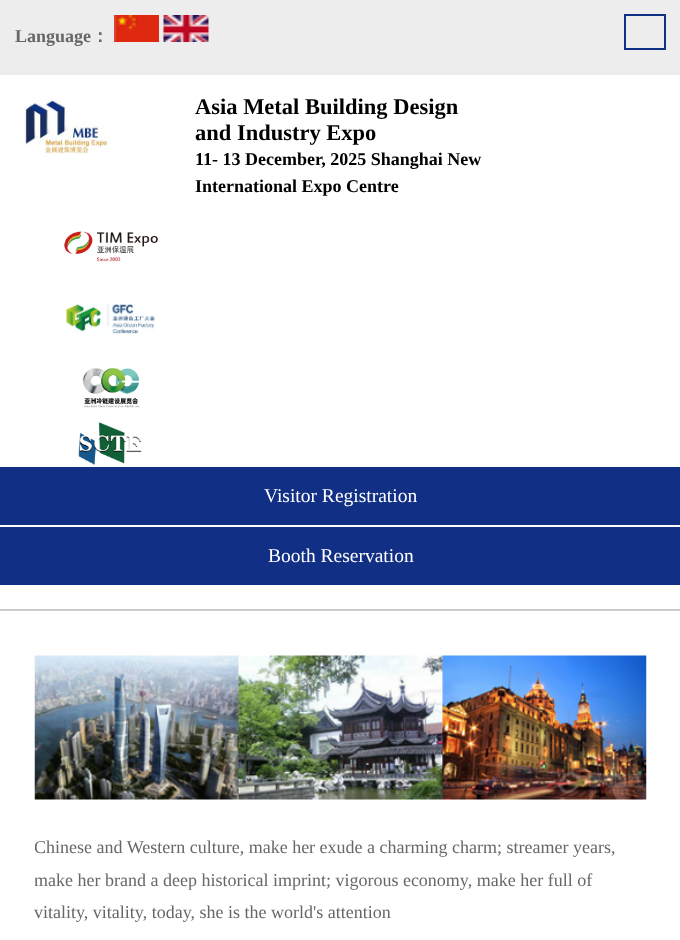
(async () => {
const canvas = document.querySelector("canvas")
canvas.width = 680
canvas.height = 940
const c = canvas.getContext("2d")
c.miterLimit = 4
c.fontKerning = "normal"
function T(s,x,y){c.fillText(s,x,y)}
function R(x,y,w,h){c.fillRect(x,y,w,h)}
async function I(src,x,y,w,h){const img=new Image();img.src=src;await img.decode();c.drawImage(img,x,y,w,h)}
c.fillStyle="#ededed"
R(0,0,680,940)
c.font="bold 18px Liberation Serif"
c.fillStyle="#676767"
T("Language",15,42)
c.font="bold 18px WenQuanYi Zen Hei"
T("：",91,42)
await I("1.png",114,15,45,27)
await I("2.png",163,15,46,27)
c.strokeStyle="#112f85"
c.lineWidth=2
c.strokeRect(625,15,40,34)
c.fillStyle="#fff"
R(0,75,680,534)
c.fillStyle="#ccc"
R(0,609,680,2)
await I("3.png",23,99,88,56)
c.font="bold 22.5px Liberation Serif"
c.fillStyle="#000"
T("Asia Metal Building Design",195,114)
T("and Industry Expo",195,140)
c.font="bold 18px Liberation Serif"
T("11- 13 December, 2025 Shanghai New",195,165)
T("International Expo Centre",195,192)
await I("4.png",64,231,94,31)
await I("5.png",65,303,90,31)
await I("6.png",82,368,58,40)
await I("7.png",78,422,66,43)
c.fillStyle="#112f85"
R(0,467,680,58)
c.font="19.5px Liberation Serif"
c.fillStyle="#fff"
T("Visitor Registration",264,502)
c.fillStyle="#112f85"
R(0,527,680,58)
c.fillStyle="#fff"
T("Booth Reservation",268,562)
R(0,611,680,329)
await I("8.png",34,655,613,145)
c.save()
c.beginPath()
c.rect(35,611,612,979)
c.clip()
c.font="18px Liberation Serif"
c.fillStyle="#676767"
T("Chinese and Western culture, make her exude a charming charm; streamer years,",34,853)
T("make her brand a deep historical imprint; vigorous economy, make her full of",34,886)
c.restore()
c.font="18px Liberation Serif"
c.fillStyle="#676767"
T("vitality, vitality, today, she is the world's attention",34,918)
})()
